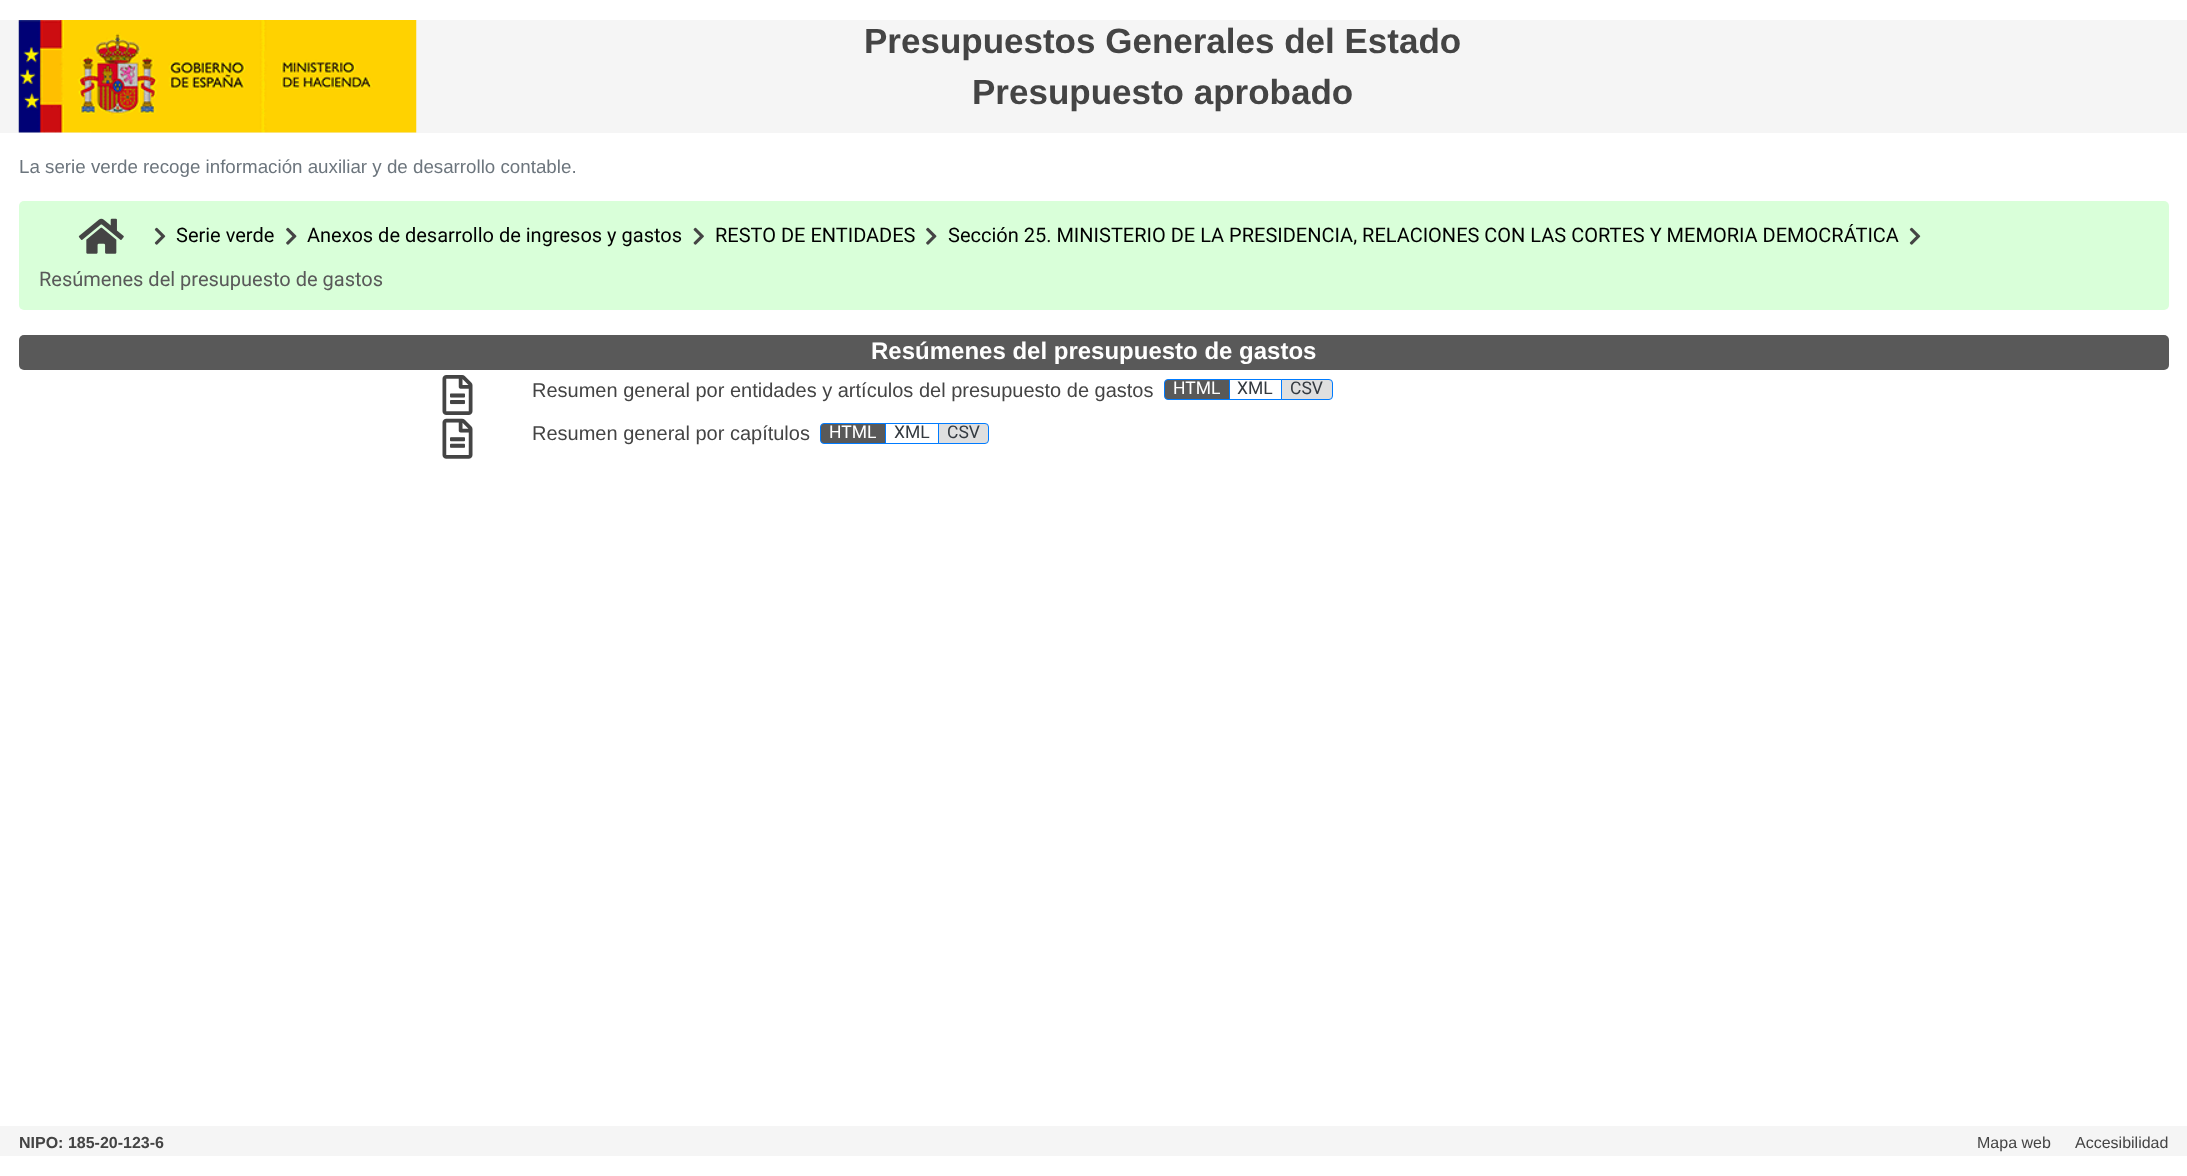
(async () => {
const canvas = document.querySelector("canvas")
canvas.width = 2187
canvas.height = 1176
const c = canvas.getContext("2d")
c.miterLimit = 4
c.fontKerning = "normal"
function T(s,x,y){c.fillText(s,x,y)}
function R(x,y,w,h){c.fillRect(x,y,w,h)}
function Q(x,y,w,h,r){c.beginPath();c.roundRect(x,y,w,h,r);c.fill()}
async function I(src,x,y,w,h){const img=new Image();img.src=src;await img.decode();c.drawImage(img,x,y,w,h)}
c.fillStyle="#fff"
R(0,0,2187,1176)
c.fillStyle="#f5f5f5"
R(0,20,2187,113)
await I("1.png",18,20,399,113)
c.font="bold 35px Liberation Sans"
c.fillStyle="#444"
T("Presupuestos Generales del Estado",864,53)
T("Presupuesto aprobado",972,104)
c.font="18.75px Liberation Sans"
c.fillStyle="#6c757d"
T("La serie verde recoge información auxiliar y de desarrollo contable.",19,173)
c.fillStyle="#d9ffd9"
Q(19,201,2150,109,5)
await I("2.png",78,218,46,36)
await I("3.png",154,227,12,18)
c.font="20px Roboto"
c.fillStyle="#000"
T("Serie verde",176,242)
await I("4.png",286,227,11,18)
T("Anexos de desarrollo de ingresos y gastos",307,242)
await I("5.png",693,227,11,18)
T("RESTO DE ENTIDADES",715,242)
await I("4.png",926,227,11,18)
T("Sección 25. MINISTERIO DE LA PRESIDENCIA, RELACIONES CON LAS CORTES Y MEMORIA DEMOCRÁTICA",948,242)
await I("3.png",1909,227,12,18)
c.fillStyle="#595959"
T("Resúmenes del presupuesto de gastos",39,286)
Q(19,335,2150,35,5)
c.font="bold 24px Liberation Sans"
c.fillStyle="#fff"
T("Resúmenes del presupuesto de gastos",871,359)
await I("6.png",442,375,31,40)
c.font="20px Liberation Sans"
c.fillStyle="#444"
T("Resumen general por entidades y artículos del presupuesto de gastos",532,397)
c.fillStyle="#595959"
c.beginPath()
c.roundRect(1164.5,379.5,65,20,[3.5,0,0,3.5])
c.fill()
c.strokeStyle="#007bff"
c.stroke()
c.font="17.5px Roboto"
c.fillStyle="#fff"
T("HTML",1173,394)
c.strokeRect(1229.5,379.5,53,20)
c.fillStyle="#343a40"
T("XML",1237,394)
c.fillStyle="#dfdfdf"
c.beginPath()
c.roundRect(1281.5,379.5,51,20,[0,3.5,3.5,0])
c.fill()
c.stroke()
c.fillStyle="#343a40"
T("CSV",1290,394)
await I("7.png",442,418,31,41)
c.font="20px Liberation Sans"
c.fillStyle="#444"
T("Resumen general por capítulos",532,440)
c.fillStyle="#595959"
c.beginPath()
c.roundRect(820.5,423.5,65,20,[3.5,0,0,3.5])
c.fill()
c.stroke()
c.font="17.5px Roboto"
c.fillStyle="#fff"
T("HTML",829,438)
c.strokeRect(885.5,423.5,53,20)
c.fillStyle="#343a40"
T("XML",894,438)
c.fillStyle="#dfdfdf"
c.beginPath()
c.roundRect(938.5,423.5,50,20,[0,3.5,3.5,0])
c.fill()
c.stroke()
c.fillStyle="#343a40"
T("CSV",947,438)
c.fillStyle="#f5f5f5"
R(0,1126,2187,30)
c.font="bold 16px Liberation Sans"
c.fillStyle="#444"
T("NIPO: 185-20-123-6",19,1148)
c.font="16px Liberation Sans"
T("Mapa web",1977,1148)
T("Accesibilidad",2075,1148)
})()
